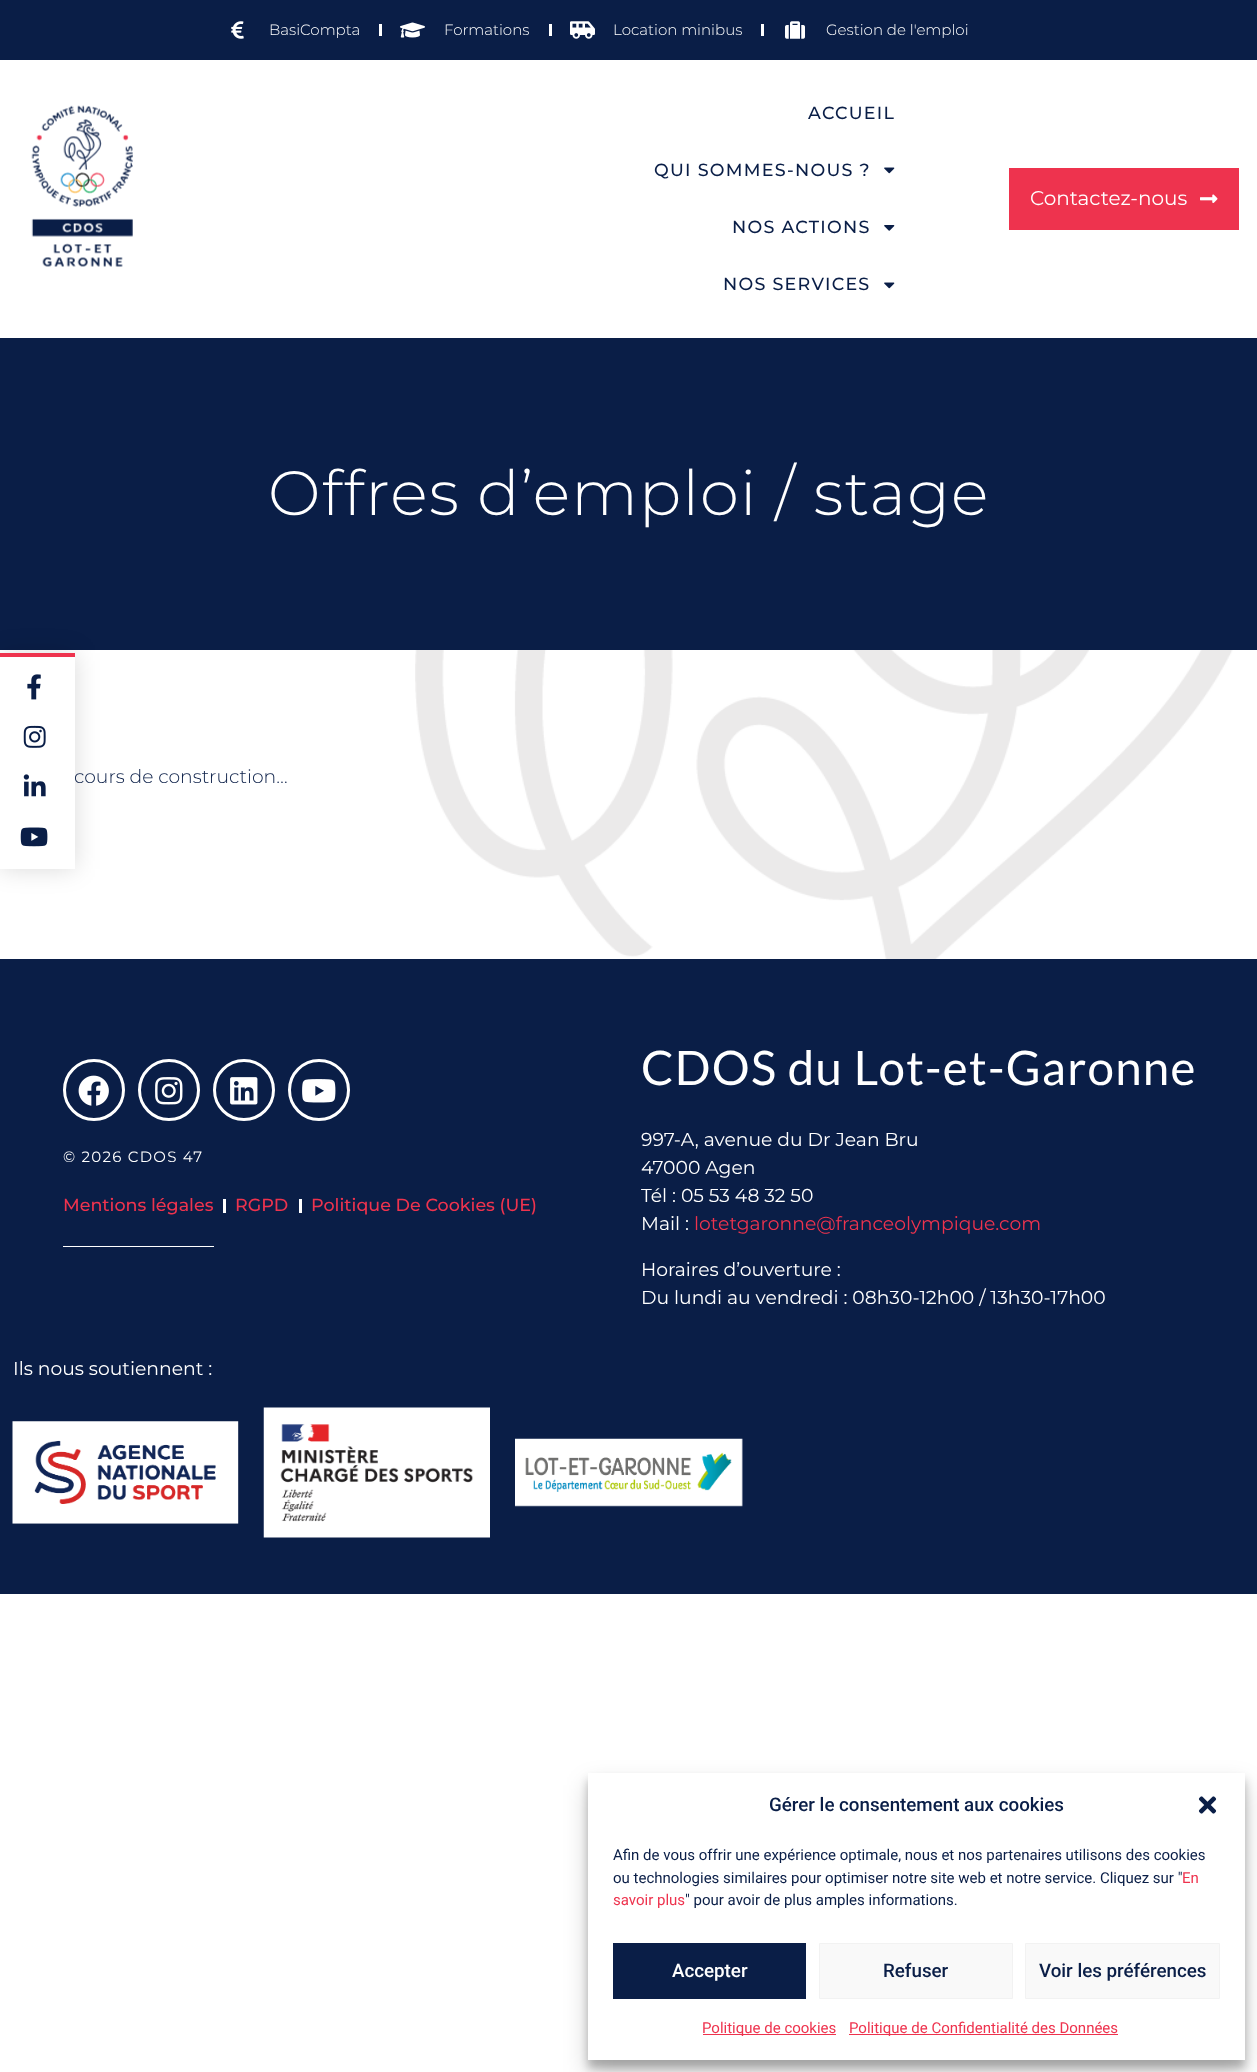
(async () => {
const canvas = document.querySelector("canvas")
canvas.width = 1257
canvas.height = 2072
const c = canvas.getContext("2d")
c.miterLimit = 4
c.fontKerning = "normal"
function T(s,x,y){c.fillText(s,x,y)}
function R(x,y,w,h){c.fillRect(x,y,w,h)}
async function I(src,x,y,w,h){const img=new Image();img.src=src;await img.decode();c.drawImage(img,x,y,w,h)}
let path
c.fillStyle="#fff"
R(0,0,1257,2072)
await I("1.png",415,650,842,309)
c.fillStyle="#0a1e47"
R(0,0,1257,60)
await I("2.png",231,21,13,18)
c.font="300 15px Montserrat"
c.fillStyle="#fff"
T("BasiCompta",269,35)
R(379,24,3,12)
await I("3.png",400,22,25,16)
T("Formations",444,35)
R(549,24,3,12)
await I("4.png",570,21,25,18)
T("Location minibus",613,35)
R(761,24,3,12)
await I("5.png",785,21,20,18)
T("Gestion de l'emploi",826,35)
await I("6.png",31,105,102,162)
c.fillStyle="#0a1e47"
R(0,338,1257,312)
c.fillStyle="#00000026"
c.filter="blur(12.5px)"
c.beginPath()
c.rect(0,653,75,216)
c.fill()
c.filter="none"
c.font="300 18.75px Montserrat"
c.fillStyle="#0a1e47"
T("cours de construction…",74,783)
c.fillStyle="#fff"
R(0,657,75,212)
c.fillStyle="#ee334e"
R(0,653,75,4)
await I("7.png",27,674,14,26)
await I("8.png",23,725,23,23)
await I("9.png",23,774,23,23)
await I("10.png",20,827,28,20)
c.letterSpacing="1.25px"
c.font="500 17.5px Montserrat"
c.fillStyle="#0a1e47"
T("ACCUEIL",808,119)
T("QUI SOMMES-NOUS ?",654,176)
await I("11.png",884,167,11,7)
T("NOS ACTIONS",732,233)
await I("12.png",884,225,11,6)
T("NOS SERVICES",723,290)
await I("11.png",884,282,11,7)
c.fillStyle="#ee334e"
R(1009,168,230,62)
c.letterSpacing="0px"
c.font="20px Montserrat"
c.fillStyle="#fff"
T("Contactez-nous",1030,205)
await I("13.png",1200,194,18,9)
c.letterSpacing="1.25px"
c.font="300 62.5px Montserrat"
T("Offres d’emploi / stage",268,515)
c.fillStyle="#0a1e47"
R(0,959,1257,635)
c.beginPath()
c.arc(94,1090,29.5,0,7)
c.strokeStyle="#fff"
c.lineWidth=3
c.stroke()
await I("14.png",78,1075,31,31)
c.beginPath()
c.arc(169,1090,29.5,0,7)
c.stroke()
await I("15.png",155,1077,28,28)
c.beginPath()
c.arc(244,1090,29.5,0,7)
c.stroke()
await I("16.png",230,1077,28,28)
c.beginPath()
c.arc(319,1090,29.5,0,7)
c.stroke()
await I("17.png",302,1079,34,24)
c.font="15px Montserrat"
c.fillStyle="#fff"
T("© 2026 CDOS 47",63,1162)
c.letterSpacing="0px"
c.font="500 17.5px Montserrat"
c.fillStyle="#ee334e"
T("Mentions légales",63,1211)
c.fillStyle="#fff"
R(223,1199,3,14)
c.fillStyle="#ee334e"
T("RGPD",235,1211)
c.fillStyle="#fff"
R(299,1199,3,14)
c.fillStyle="#ee334e"
T("Politique De Cookies (UE)",311,1211)
c.fillStyle="#fff"
R(63,1246,151,1)
c.letterSpacing="1.25px"
c.font="47.5px Lato"
T("CDOS du Lot-et-Garonne",641,1085)
c.letterSpacing="0px"
c.font="18.75px Montserrat"
T("997-A, avenue du Dr Jean Bru",641,1146)
T("47000 Agen",641,1174)
T("Tél : 05 53 48 32 50",641,1202)
T("Mail :",641,1230)
c.fillStyle="#ee334e"
T("lotetgaronne@franceolympique.com",694,1230)
c.fillStyle="#fff"
T("Horaires d’ouverture :",641,1276)
T("Du lundi au vendredi : 08h30-12h00 / 13h30-17h00",641,1304)
T("Ils nous soutiennent :",13,1375)
await I("18.png",12,1421,227,103)
await I("19.png",263,1407,227,131)
await I("20.png",515,1438,228,69)
c.save()
path = new Path2D("M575 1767h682v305h-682zm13 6h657v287h-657z")
c.clip(path,"evenodd")
c.fillStyle="#0000003b"
c.filter="blur(4px)"
c.beginPath()
c.rect(588,1780,657,288)
c.fill()
c.filter="none"
c.restore()
c.save()
path = new Path2D("M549 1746h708v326h-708zm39 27h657v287h-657z")
c.clip(path,"evenodd")
c.fillStyle="#00000030"
c.filter="blur(12.5px)"
c.beginPath()
c.rect(588,1785,657,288)
c.fill()
c.filter="none"
c.restore()
c.font="500 18.75px Roboto"
c.fillStyle="#0a1e47"
T("Gérer le consentement aux cookies",769,1811)
await I("21.png",1198,1796,19,18)
c.font="15px Roboto"
T("Afin de vous offrir une expérience optimale, nous et nos partenaires utilisons des cookies",613,1860)
T("ou technologies similaires pour optimiser notre site web et notre service. Cliquez sur \"",613,1883)
c.fillStyle="#ee334e"
T("En",1182,1883)
T("savoir plus",613,1905)
c.fillStyle="#0a1e47"
T("\" pour avoir de plus amples informations.",685,1905)
R(613,1943,193,56)
c.font="500 18.75px Roboto"
c.fillStyle="#fff"
T("Accepter",672,1977)
c.fillStyle="#f9f9f9"
c.beginPath()
c.rect(819.5,1943.5,193,55)
c.fill()
c.strokeStyle="#f2f2f2"
c.lineWidth=1
c.stroke()
c.fillStyle="#0a1e47"
T("Refuser",883,1977)
c.fillStyle="#f9f9f9"
c.beginPath()
c.rect(1025.5,1943.5,194,55)
c.fill()
c.stroke()
c.fillStyle="#0a1e47"
T("Voir les préférences",1039,1977)
c.fillStyle="#ee334e"
R(703,2034,133,1)
c.font="15px Roboto"
T("Politique de cookies",702,2033)
R(849,2034,269,1)
T("Politique de Confidentialité des Données",849,2033)
})()
